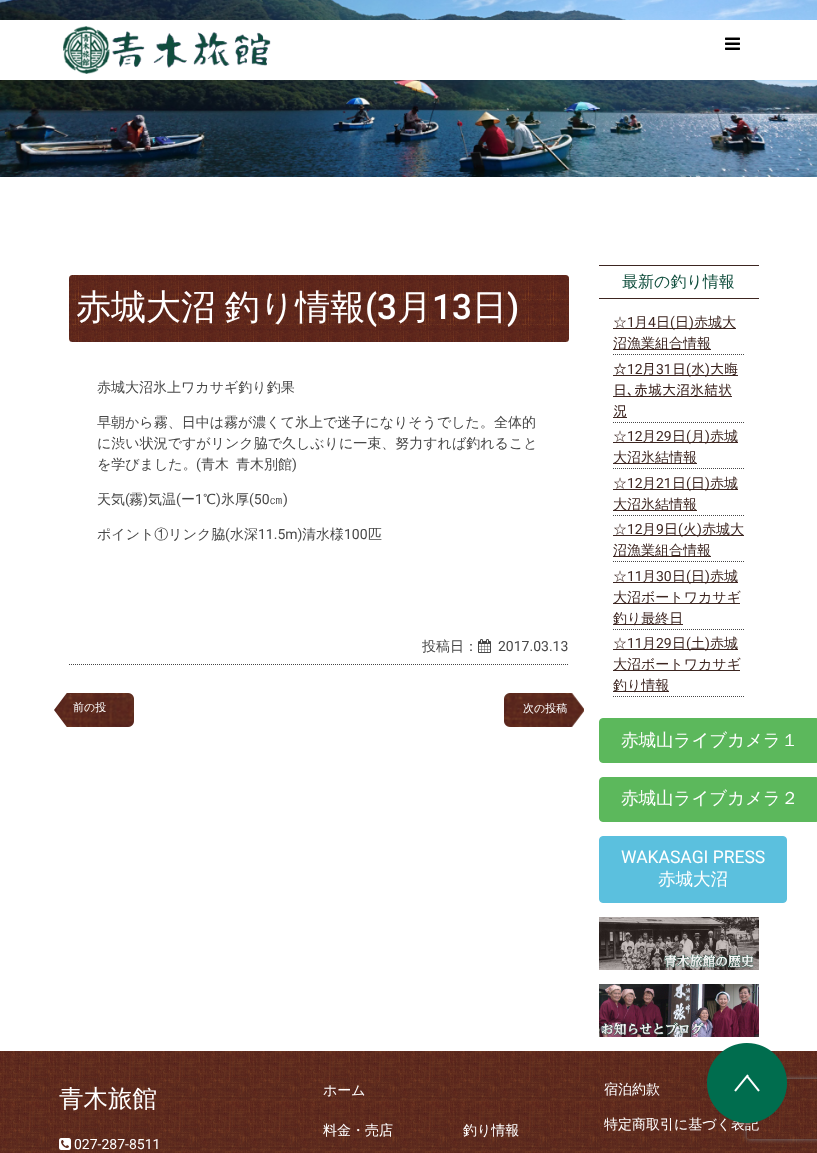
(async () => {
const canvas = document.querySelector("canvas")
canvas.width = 817
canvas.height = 1153
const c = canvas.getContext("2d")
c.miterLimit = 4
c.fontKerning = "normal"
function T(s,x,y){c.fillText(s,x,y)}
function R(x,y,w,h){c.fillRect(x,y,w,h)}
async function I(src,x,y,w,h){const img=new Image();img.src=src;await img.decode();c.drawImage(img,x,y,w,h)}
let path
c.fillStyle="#fff"
R(0,0,817,1153)
await I("1.png",0,0,817,177)
R(0,20,817,60)
await I("2.png",63,26,208,48)
await I("3.png",725,37,15,13)
path = new Path2D("M69 664.5h500")
c.strokeStyle="#474747"
c.setLineDash([1,1])
c.stroke(path)
await I("4.png",69,275,500,67)
c.wordSpacing="-2px"
c.font="500 35px WenQuanYi Zen Hei"
T("赤城大沼 釣り情報",76,319)
c.wordSpacing="0px"
c.font="500 35px Roboto"
T("(3",365,319)
c.font="500 35px WenQuanYi Zen Hei"
T("月",397,319)
c.font="500 35px Roboto"
T("13",432,319)
c.font="500 35px WenQuanYi Zen Hei"
T("日",472,319)
c.font="500 35px Roboto"
T(")",507,319)
c.font="500 14px WenQuanYi Zen Hei"
c.fillStyle="#474747"
T("赤城大沼氷上ワカサギ釣り釣果",97,392)
T("早朝から霧、日中は霧が濃くて氷上で迷子になりそうでした。全体的",97,427)
T("に渋い状況ですがリンク脇で久しぶりに一束、努力すれば釣れること",97,448)
T("を学びました。",97,469)
c.font="14px Roboto"
T("(",196,469)
c.font="500 14px WenQuanYi Zen Hei"
T("青木",201,469)
T("青木別館",236,469)
c.font="14px Roboto"
T(")",292,469)
c.font="500 14px WenQuanYi Zen Hei"
T("天気",97,504)
c.font="14px Roboto"
T("(",125,504)
c.font="500 14px WenQuanYi Zen Hei"
T("霧",129,504)
c.font="14px Roboto"
T(")",143,504)
c.font="500 14px WenQuanYi Zen Hei"
T("気温",148,504)
c.font="14px Roboto"
T("(",176,504)
c.font="500 14px WenQuanYi Zen Hei"
T("ー",181,504)
c.font="14px Roboto"
T("1",195,504)
c.font="500 14px WenQuanYi Zen Hei"
T("℃",203,504)
c.font="14px Roboto"
T(")",216,504)
c.font="500 14px WenQuanYi Zen Hei"
T("氷厚",221,504)
c.font="14px Roboto"
T("(50",249,504)
c.font="500 14px WenQuanYi Zen Hei"
T("㎝",269,504)
c.font="14px Roboto"
T(")",283,504)
c.font="500 14px WenQuanYi Zen Hei"
T("ポイント①リンク脇",97,539)
c.font="14px Roboto"
T("(",225,539)
c.font="500 14px WenQuanYi Zen Hei"
T("水深",230,539)
c.font="14px Roboto"
T("11.5m)",258,539)
c.font="500 14px WenQuanYi Zen Hei"
T("清水様",302,539)
c.font="14px Roboto"
T("100",344,539)
c.font="500 14px WenQuanYi Zen Hei"
T("匹",368,539)
T("投稿日：",422,651)
await I("5.png",478,639,13,14)
c.font="14px Roboto"
T("2017.03.13",498,651)
await I("6.png",54,693,80,34)
c.font="500 11px WenQuanYi Zen Hei"
c.fillStyle="#fff"
T("前の投",73,711)
await I("7.png",504,693,80,34)
T("次の投稿",523,712)
c.fillStyle="#3c2520"
R(599,265,160,1)
R(599,298,160,1)
c.font="500 16px WenQuanYi Zen Hei"
c.fillStyle="#104e3d"
T("最新の釣り情報",622,287)
path = new Path2D("M613 354.5h132")
c.stroke(path)
c.font="500 14px WenQuanYi Zen Hei"
c.fillStyle="#3c2520"
T("☆",613,327)
c.font="14px Roboto"
T("1",627,327)
R(613,328,123,1)
c.font="500 14px WenQuanYi Zen Hei"
T("月",634,327)
c.font="14px Roboto"
T("4",648,327)
c.font="500 14px WenQuanYi Zen Hei"
T("日",656,327)
c.font="14px Roboto"
T("(",670,327)
c.font="500 14px WenQuanYi Zen Hei"
T("日",675,327)
c.font="14px Roboto"
T(")",689,327)
c.font="500 14px WenQuanYi Zen Hei"
T("赤城大",694,327)
R(613,349,98,1)
T("沼漁業組合情報",613,348)
path = new Path2D("M613 422.5h132")
c.stroke(path)
c.font="14px IPAPGothic"
T("☆",613,374)
c.font="14px Roboto"
T("12",627,374)
c.font="14px IPAPGothic"
T("月",642,374)
c.font="14px Roboto"
T("31",656,374)
c.font="14px IPAPGothic"
T("日",672,374)
R(613,375,125,1)
c.font="14px Roboto"
T("(",686,374)
c.font="14px IPAPGothic"
T("水",691,374)
c.font="14px Roboto"
T(")",705,374)
c.font="14px IPAPGothic"
T("大晦",710,374)
R(613,396,119,1)
T("日､赤城大沼氷結状",613,395)
R(613,417,14,1)
T("況",613,416)
path = new Path2D("M613 468.5h132")
c.stroke(path)
c.font="500 14px WenQuanYi Zen Hei"
T("☆",613,441)
c.font="14px Roboto"
T("12",627,441)
R(613,442,125,1)
c.font="500 14px WenQuanYi Zen Hei"
T("月",642,441)
c.font="14px Roboto"
T("29",656,441)
c.font="500 14px WenQuanYi Zen Hei"
T("日",672,441)
c.font="14px Roboto"
T("(",686,441)
c.font="500 14px WenQuanYi Zen Hei"
T("月",691,441)
c.font="14px Roboto"
T(")",705,441)
c.font="500 14px WenQuanYi Zen Hei"
T("赤城",710,441)
R(613,463,84,1)
T("大沼氷結情報",613,462)
path = new Path2D("M613 515.5h132")
c.stroke(path)
T("☆",613,488)
c.font="14px Roboto"
T("12",627,488)
R(613,489,125,1)
c.font="500 14px WenQuanYi Zen Hei"
T("月",642,488)
c.font="14px Roboto"
T("21",656,488)
c.font="500 14px WenQuanYi Zen Hei"
T("日",672,488)
c.font="14px Roboto"
T("(",686,488)
c.font="500 14px WenQuanYi Zen Hei"
T("日",691,488)
c.font="14px Roboto"
T(")",705,488)
c.font="500 14px WenQuanYi Zen Hei"
T("赤城",710,488)
R(613,510,84,1)
T("大沼氷結情報",613,509)
path = new Path2D("M613 561.5h132")
c.stroke(path)
T("☆",613,534)
c.font="14px Roboto"
T("12",627,534)
R(613,535,131,1)
c.font="500 14px WenQuanYi Zen Hei"
T("月",642,534)
c.font="14px Roboto"
T("9",656,534)
c.font="500 14px WenQuanYi Zen Hei"
T("日",664,534)
c.font="14px Roboto"
T("(",678,534)
c.font="500 14px WenQuanYi Zen Hei"
T("火",683,534)
c.font="14px Roboto"
T(")",697,534)
c.font="500 14px WenQuanYi Zen Hei"
T("赤城大",702,534)
R(613,556,98,1)
T("沼漁業組合情報",613,555)
path = new Path2D("M613 629.5h132")
c.stroke(path)
T("☆",613,581)
c.font="14px Roboto"
T("11",627,581)
R(613,582,125,1)
c.font="500 14px WenQuanYi Zen Hei"
T("月",642,581)
c.font="14px Roboto"
T("30",656,581)
c.font="500 14px WenQuanYi Zen Hei"
T("日",672,581)
c.font="14px Roboto"
T("(",686,581)
c.font="500 14px WenQuanYi Zen Hei"
T("日",691,581)
c.font="14px Roboto"
T(")",705,581)
c.font="500 14px WenQuanYi Zen Hei"
T("赤城",710,581)
R(613,603,127,1)
T("大沼ボートワカサギ",613,602)
R(613,624,70,1)
T("釣り最終日",613,623)
path = new Path2D("M613 696.5h132")
c.stroke(path)
T("☆",613,648)
c.font="14px Roboto"
T("11",627,648)
R(613,649,125,1)
c.font="500 14px WenQuanYi Zen Hei"
T("月",642,648)
c.font="14px Roboto"
T("29",656,648)
c.font="500 14px WenQuanYi Zen Hei"
T("日",672,648)
c.font="14px Roboto"
T("(",686,648)
c.font="500 14px WenQuanYi Zen Hei"
T("土",691,648)
c.font="14px Roboto"
T(")",705,648)
c.font="500 14px WenQuanYi Zen Hei"
T("赤城",710,648)
R(613,670,127,1)
T("大沼ボートワカサギ",613,669)
R(613,691,56,1)
T("釣り情報",613,690)
c.fillStyle="#5cb85c"
c.beginPath()
c.roundRect(599.5,718.5,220,44,3.5)
c.fill()
c.strokeStyle="#5cb85c"
c.setLineDash([])
c.stroke()
c.font="500 17.5px WenQuanYi Zen Hei"
c.fillStyle="#fff"
T("赤城山ライブカメラ１",621,746)
c.fillStyle="#5cb85c"
c.beginPath()
c.roundRect(599.5,777.5,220,44,3.5)
c.fill()
c.stroke()
c.fillStyle="#fff"
T("赤城山ライブカメラ２",621,804)
c.fillStyle="#5bc0de"
c.beginPath()
c.roundRect(599.5,836.5,187,66,3.5)
c.fill()
c.strokeStyle="#5bc0de"
c.stroke()
c.font="17.5px Roboto"
c.fillStyle="#fff"
T("WAKASAGI PRESS",621,863)
c.font="500 17.5px WenQuanYi Zen Hei"
T("赤城大沼",658,885)
await I("8.png",599,917,160,53)
await I("9.png",599,984,160,53)
await I("11.png",0,1051,817,102)
c.font="500 14px WenQuanYi Zen Hei"
T("特定商取引に基づく表記",604,1129)
c.save()
path = new Path2D("M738 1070h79v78h-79zm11 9h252c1 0 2 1 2 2v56c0 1-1 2-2 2h-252c-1 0-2-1-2-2v-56c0-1 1-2 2-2z")
c.clip(path,"evenodd")
c.fillStyle="#808080"
c.filter="blur(2.5px)"
c.beginPath()
c.roundRect(747,1079,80,60,2)
c.fill()
c.filter="none"
c.restore()
await I("10.png",707,1043,80,80)
c.font="500 24.5px WenQuanYi Zen Hei"
T("青木旅館",59,1107)
await I("12.png",59,1138,12,12)
c.font="14px Roboto"
T("027-287-8511",74,1149)
c.font="500 14px WenQuanYi Zen Hei"
T("ホーム",323,1095)
T("料金・売店",323,1135)
T("釣り情報",463,1135)
T("宿泊約款",604,1094)
})()
